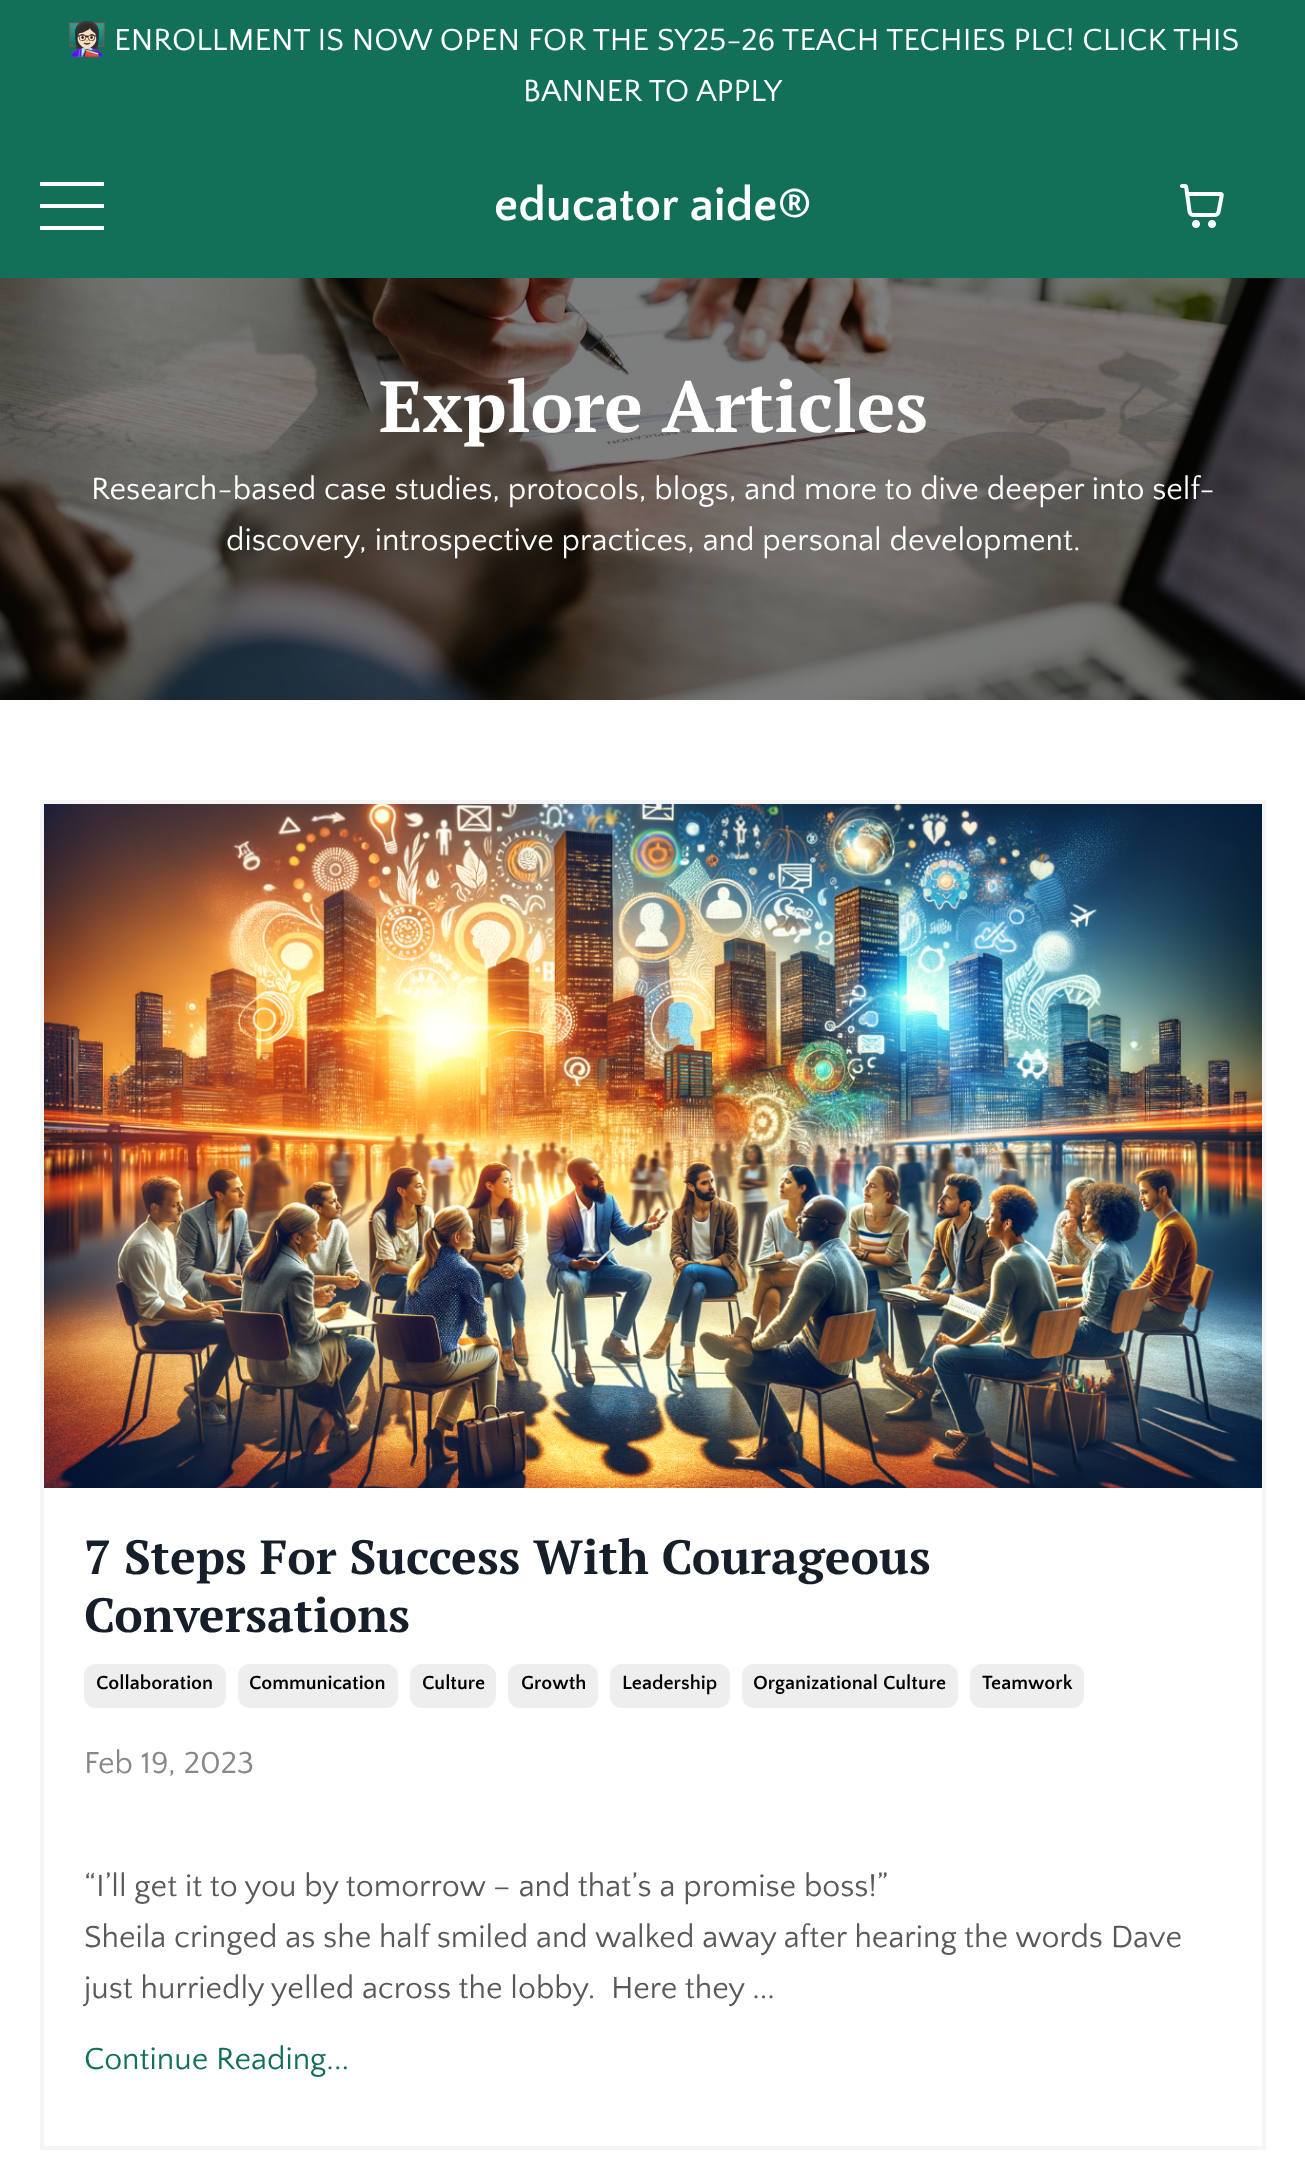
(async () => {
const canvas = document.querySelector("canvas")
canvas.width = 1305
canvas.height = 2180
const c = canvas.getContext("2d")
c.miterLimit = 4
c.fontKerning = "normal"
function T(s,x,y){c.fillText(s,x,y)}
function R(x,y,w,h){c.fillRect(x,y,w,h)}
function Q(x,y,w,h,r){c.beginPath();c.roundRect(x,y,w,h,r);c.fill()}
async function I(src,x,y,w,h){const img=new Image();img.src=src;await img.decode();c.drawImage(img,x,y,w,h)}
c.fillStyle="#fff"
R(0,0,1305,2180)
c.fillStyle="#127059"
R(0,0,1305,278)
c.font="32px Noto Color Emoji"
c.fillStyle="#fff"
T("👩🏻‍🏫",67,50)
c.font="32px Quattrocento Sans"
T("ENROLLMENT IS NOW OPEN FOR THE SY25-26 TEACH TECHIES PLC! CLICK THIS",114,50)
T("BANNER TO APPLY",523,101)
R(40,182,64,4)
R(40,204,64,4)
R(40,226,64,4)
c.font="bold 48px Quattrocento Sans"
T("educator aide®",494,220)
await I("1.png",1180,184,44,44)
await I("2.png",0,278,1305,422)
c.font="bold 72px PT Serif"
T("Explore Articles",379,432)
c.font="32px Quattrocento Sans"
T("Research-based case studies, protocols, blogs, and more to dive deeper into self-",91,499)
T("discovery, introspective practices, and personal development.",226,550)
c.strokeStyle="#f5f5f5"
c.lineWidth=4
c.strokeRect(42,802,1222,1346)
await I("3.png",44,804,1218,684)
c.font="bold 48px PT Serif"
c.fillStyle="#161e2a"
T("7 Steps For Success With Courageous",84,1574)
T("Conversations",84,1632)
c.fillStyle="#eee"
Q(84,1664,142,44,12)
c.font="bold 20px Quattrocento Sans"
c.fillStyle="#000"
T("Collaboration",96,1689)
c.fillStyle="#eee"
Q(238,1664,160,44,12)
c.fillStyle="#000"
T("Communication",249,1689)
c.fillStyle="#eee"
Q(410,1664,86,44,12)
c.fillStyle="#000"
T("Culture",422,1689)
c.fillStyle="#eee"
Q(508,1664,90,44,12)
c.fillStyle="#000"
T("Growth",521,1689)
c.fillStyle="#eee"
Q(610,1664,120,44,12)
c.fillStyle="#000"
T("Leadership",622,1689)
c.fillStyle="#eee"
Q(742,1664,216,44,12)
c.fillStyle="#000"
T("Organizational Culture",753,1689)
c.fillStyle="#eee"
Q(970,1664,114,44,12)
c.fillStyle="#000"
T("Teamwork",982,1689)
c.font="32px Quattrocento Sans"
c.fillStyle="#888"
T("Feb 19, 2023",84,1773)
c.fillStyle="#595959"
T("“I’ll get it to you by tomorrow – and that’s a promise boss!”",84,1896)
T("Sheila cringed as she half smiled and walked away after hearing the words Dave",84,1947)
T("just hurriedly yelled across the lobby.  Here they ...",84,1998)
c.fillStyle="#127059"
T("Continue Reading...",84,2069)
})()
